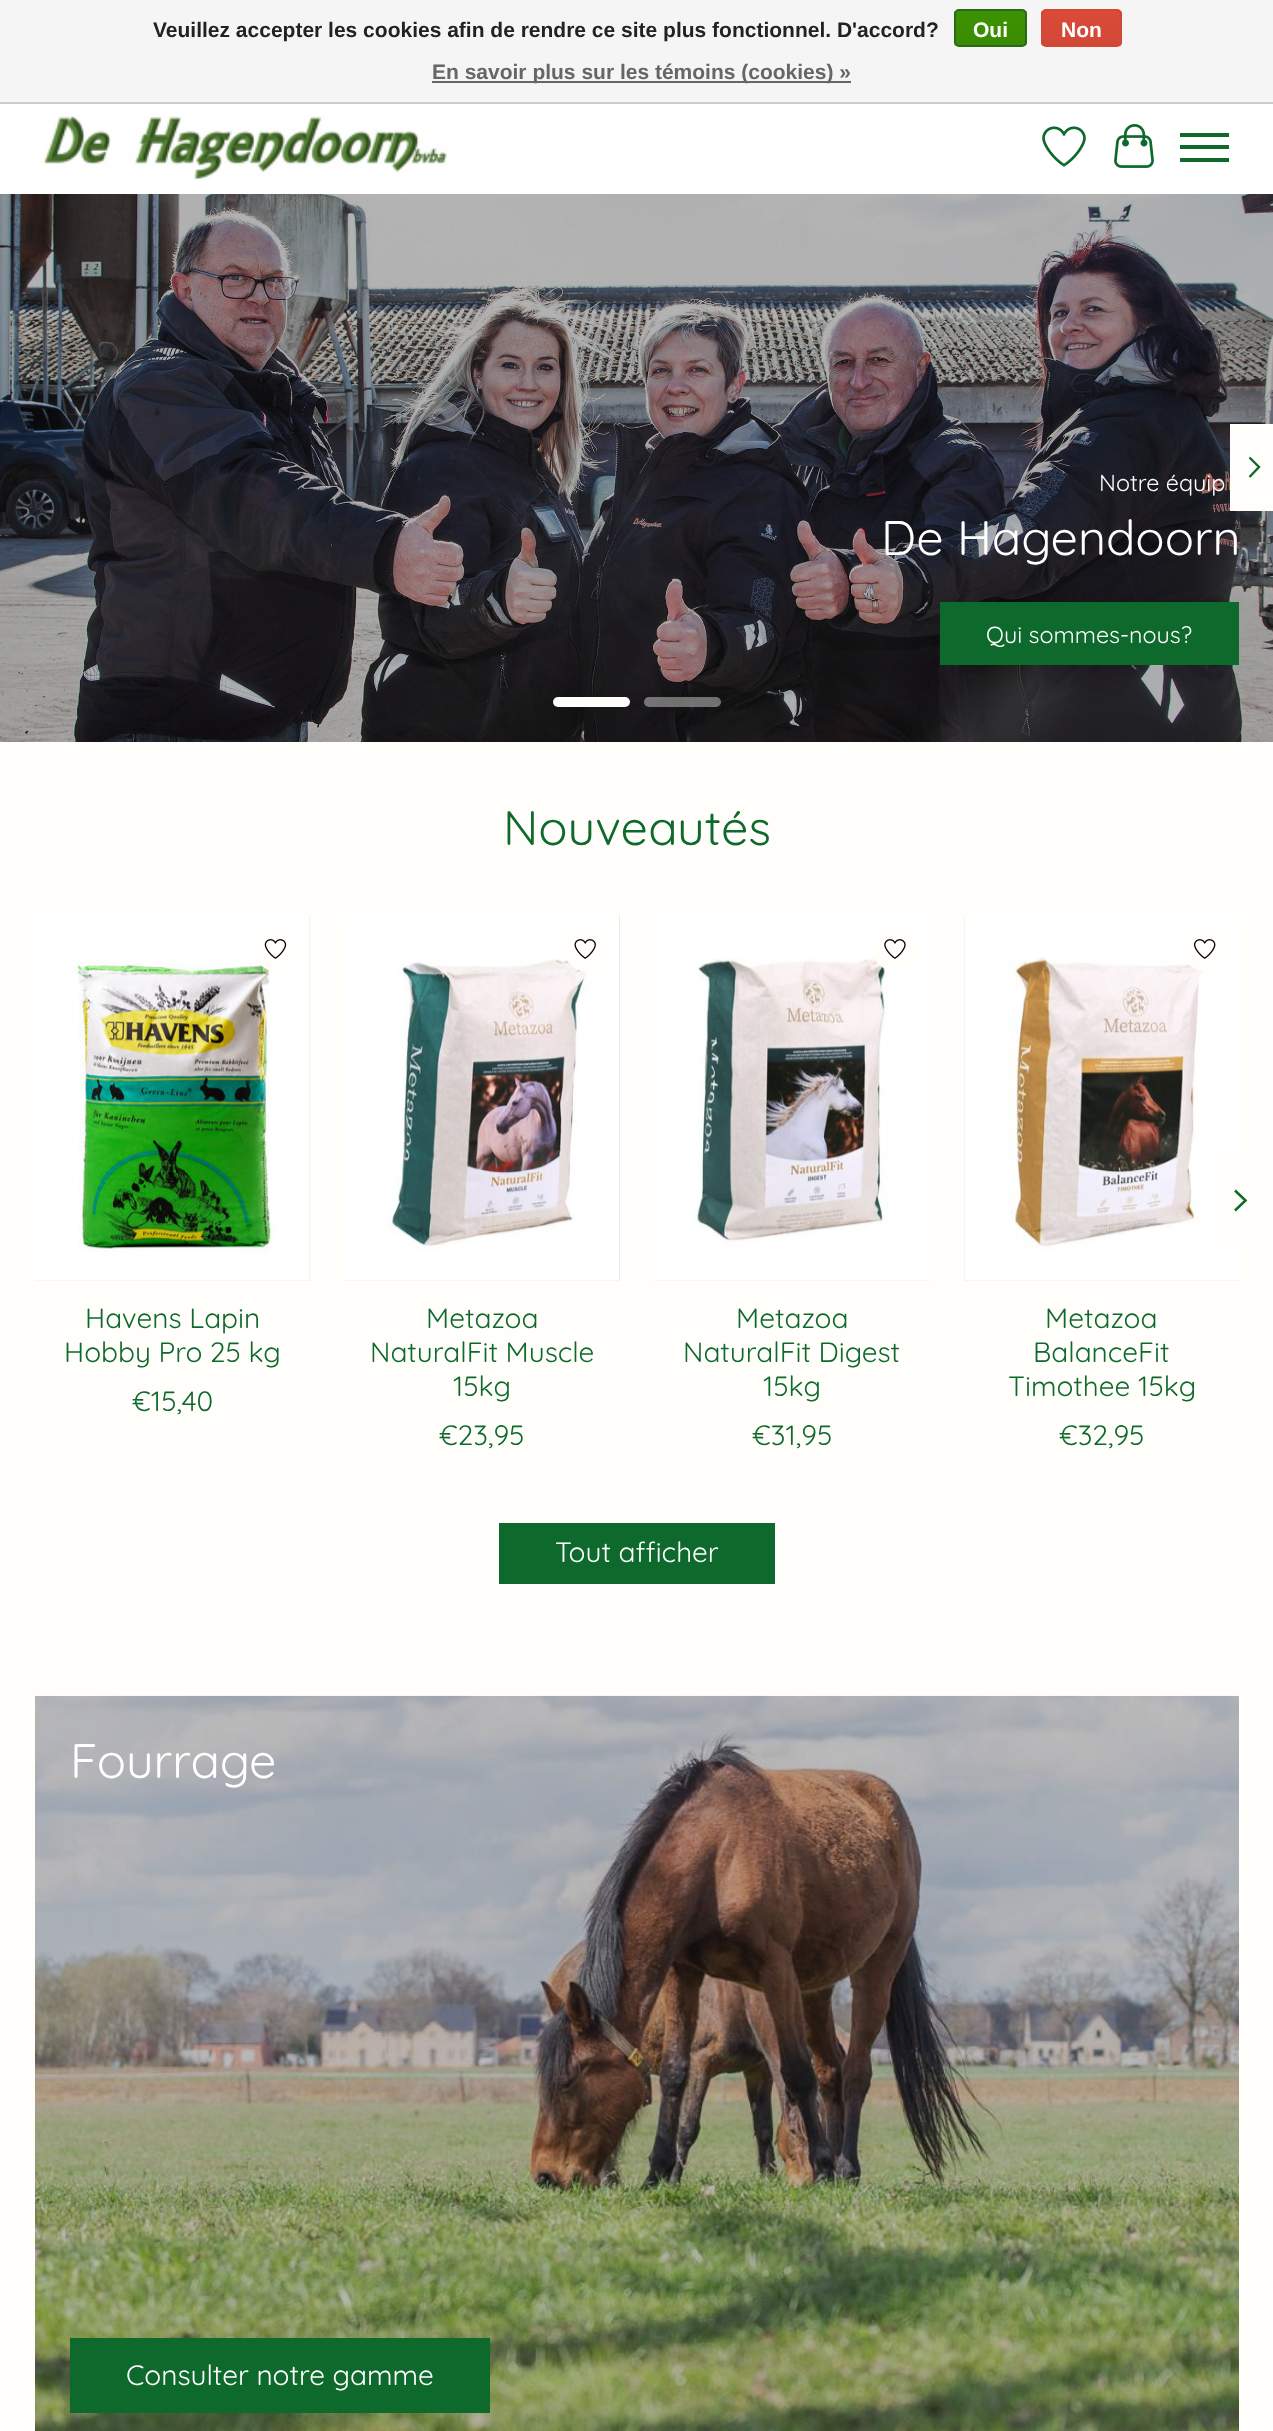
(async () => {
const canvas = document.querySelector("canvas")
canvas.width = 1273
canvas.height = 2431
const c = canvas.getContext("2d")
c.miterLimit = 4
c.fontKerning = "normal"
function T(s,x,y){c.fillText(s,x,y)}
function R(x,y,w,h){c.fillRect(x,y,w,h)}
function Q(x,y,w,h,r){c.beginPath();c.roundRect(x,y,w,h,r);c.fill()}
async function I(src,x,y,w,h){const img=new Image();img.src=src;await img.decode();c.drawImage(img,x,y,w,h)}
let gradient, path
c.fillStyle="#fffefa"
R(0,0,1273,2431)
c.fillStyle="#f5f5f5"
R(0,0,1273,102)
c.fillStyle="#ccc"
R(0,102,1273,2)
c.font="bold 21px Liberation Sans"
c.fillStyle="#222"
T("Veuillez accepter les cookies afin de rendre ce site plus fonctionnel. D'accord?",153,37)
c.save()
c.beginPath()
c.roundRect(954,9,73,38,5)
c.clip()
gradient = c.createLinearGradient(991,10,991,46)
gradient.addColorStop(0,"#3c9300")
gradient.addColorStop(1,"#398a00")
c.fillStyle = gradient
R(954,11,73,35)
c.restore()
c.beginPath()
c.roundRect(955,10,71,36,4)
c.strokeStyle="#29691d"
c.lineWidth=2
c.stroke()
c.fillStyle="#fff"
T("Oui",973,37)
c.save()
c.beginPath()
c.roundRect(1041,9,81,38,5)
c.clip()
gradient = c.createLinearGradient(1082,10,1082,46)
gradient.addColorStop(0,"#dc4a38")
gradient.addColorStop(1,"#d14836")
c.fillStyle = gradient
R(1041,11,81,35)
c.restore()
c.beginPath()
c.roundRect(1042,10,79,36,4)
c.strokeStyle="#d14836"
c.stroke()
T("Non",1061,37)
c.fillStyle="#666"
R(432,81,419,2)
T("En savoir plus sur les témoins (cookies) »",432,79)
c.fillStyle="#fff"
R(0,104,1273,90)
await I("1.png",43,115,404,66)
await I("2.png",1042,126,44,41)
await I("3.png",1114,124,40,44)
c.fillStyle="#0e692c"
R(1180,145,49,4)
R(1180,133,49,4)
R(1180,158,49,4)
await I("4.png",0,194,1273,548)
c.font="23.25px Quicksand"
c.fillStyle="#fff"
T("Notre équip",1099,491)
c.font="48.5px Quicksand"
T("De Hagendoorn",881,555)
c.fillStyle="#0e692c"
R(940,602,299,63)
c.font="23.25px Quicksand"
c.fillStyle="#fff"
T("Qui sommes-nous?",986,643)
c.fillStyle="#fffefa"
R(1230,424,43,87)
path = new Path2D("M1249.5 477l9.5-10l-9.5-9.5")
c.strokeStyle="#0e692c"
c.lineWidth=2.4
c.stroke(path)
Q(553,697,77,10,5)
c.fillStyle="#fffefa66"
Q(644,697,77,10,5)
c.font="48.5px Quicksand"
c.fillStyle="#0e692c"
T("Nouveautés",503,845)
c.fillStyle="#dbe8db"
R(964,915,275,366)
await I("11.png",964,915,275,366)
c.fillStyle="#fffefa"
R(1216,1153,23,95)
path = new Path2D("M1235 1210.5l10.5-10l-10.5-10")
c.lineWidth=2.5
c.stroke(path)
c.fillStyle="#dbe8db"
R(35,915,275,366)
await I("5.png",35,915,275,366)
c.fillStyle="#fffefa"
Q(254,928,45,43,21.5)
await I("6.png",264,939,23,20)
c.font="28px Quicksand"
c.fillStyle="#0e692c"
T("Havens Lapin",85,1328)
T("Hobby Pro 25 kg",64,1362)
T("€15,40",132,1411)
c.fillStyle="#dbe8db"
R(345,915,275,366)
await I("7.png",345,915,275,366)
c.fillStyle="#fffefa"
Q(564,928,45,43,21.5)
await I("8.png",574,939,22,20)
c.fillStyle="#0e692c"
T("Metazoa",426,1328)
T("NaturalFit Muscle",370,1362)
T("15kg",453,1396)
T("€23,95",439,1445)
c.fillStyle="#dbe8db"
R(655,1280,274,1)
await I("9.png",655,915,274,366)
c.fillStyle="#fffefa"
Q(873,928,46,43,21.5)
await I("10.png",884,939,22,20)
c.fillStyle="#0e692c"
T("Metazoa",736,1328)
T("NaturalFit Digest",683,1362)
T("15kg",763,1396)
T("€31,95",752,1445)
c.fillStyle="#fffefa"
Q(1183,928,46,43,21.5)
await I("12.png",1194,939,22,20)
c.fillStyle="#0e692c"
T("Metazoa",1045,1328)
T("BalanceFit",1033,1362)
T("Timothee 15kg",1008,1396)
T("€32,95",1059,1445)
R(499,1523,276,61)
c.fillStyle="#fff"
T("Tout afficher",555,1562)
await I("13.png",35,1695,1204,736)
c.font="48.5px Quicksand"
T("Fourrage",70,1778)
c.fillStyle="#0e692c"
R(70,2338,420,75)
c.font="28px Quicksand"
c.fillStyle="#fff"
T("Consulter notre gamme",126,2385)
})()
